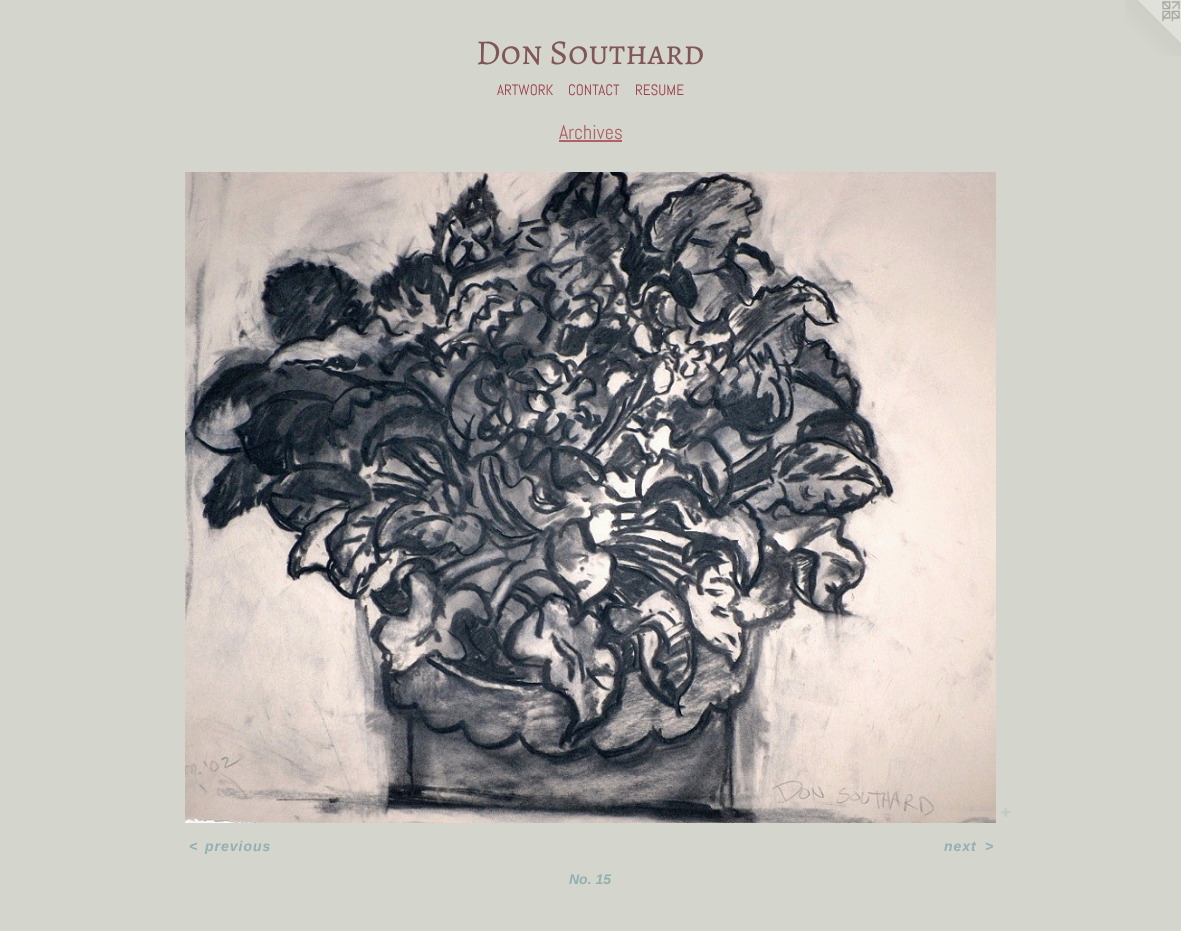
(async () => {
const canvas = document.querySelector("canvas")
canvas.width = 1181
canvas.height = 931
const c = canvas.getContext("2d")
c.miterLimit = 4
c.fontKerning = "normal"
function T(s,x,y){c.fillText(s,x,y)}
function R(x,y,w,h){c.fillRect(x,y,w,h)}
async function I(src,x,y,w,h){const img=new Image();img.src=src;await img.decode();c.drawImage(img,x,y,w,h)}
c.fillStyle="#d4d5cd"
R(0,0,1181,931)
c.font="35px Alegreya SC"
c.fillStyle="#815658"
T("Don Southard",476,64)
await I("1.png",1125,0,56,56)
c.font="15px Abel"
c.fillStyle="#9b414b"
T("ARTWORK",497,95)
T("CONTACT",568,95)
T("RESUME",635,95)
c.font="20px Abel"
c.fillStyle="#ae6168"
T("Archives",559,139)
R(559,140,63,2)
await I("2.png",185,172,811,651)
await I("3.png",1001,807,10,10)
c.letterSpacing="1px"
c.font="italic bold 14px Liberation Sans"
c.fillStyle="#92b0b0"
T("<",189,851)
T("previous",205,851)
T("next",944,851)
T(">",985,851)
c.letterSpacing="0px"
T("No. 15",569,884)
})()
